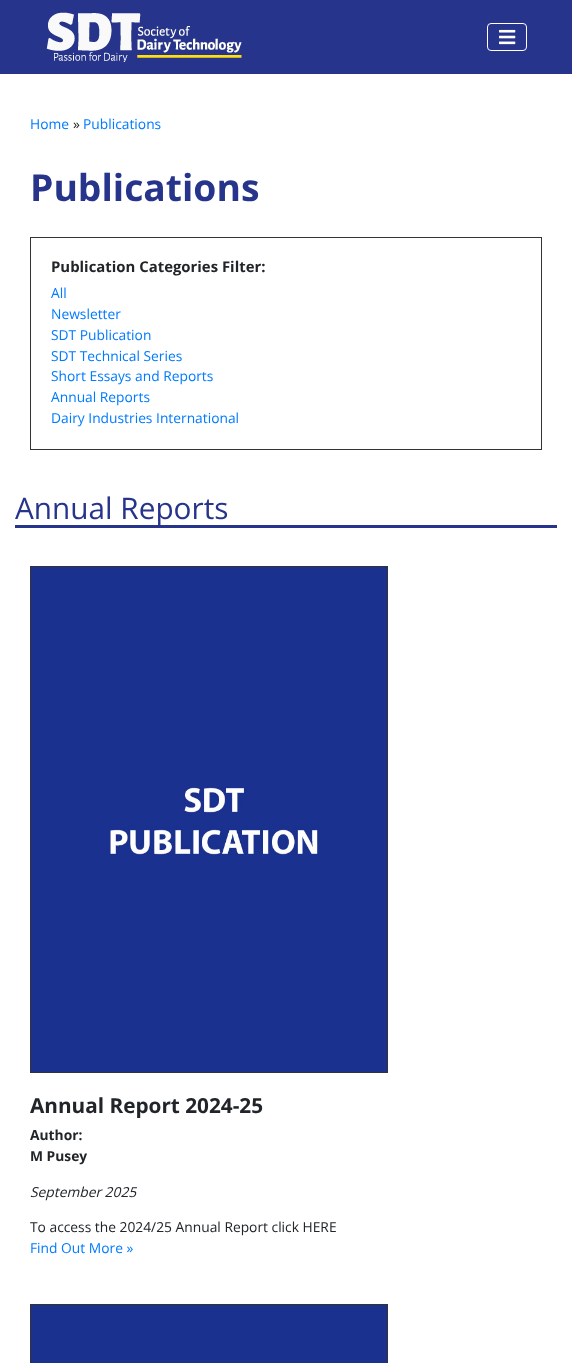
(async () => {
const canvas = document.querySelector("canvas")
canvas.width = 572
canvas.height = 1363
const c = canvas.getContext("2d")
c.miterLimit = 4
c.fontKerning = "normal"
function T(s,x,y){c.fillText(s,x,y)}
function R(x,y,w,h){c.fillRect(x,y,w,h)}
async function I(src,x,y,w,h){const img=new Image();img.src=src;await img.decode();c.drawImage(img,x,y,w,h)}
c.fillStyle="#27348b"
R(0,0,572,1363)
await I("1.png",46,12,196,50)
c.beginPath()
c.roundRect(487.5,23.5,39,27,3.5)
c.strokeStyle="#fff"
c.stroke()
await I("2.png",499,29,17,16)
c.fillStyle="#fff"
R(0,74,572,1289)
c.font="13.8px Open Sans"
c.fillStyle="#007bff"
T("Home",30,129)
c.fillStyle="#212529"
T("»",73,129)
c.fillStyle="#007bff"
T("Publications",83,129)
c.font="bold 37.25px Open Sans"
c.fillStyle="#27348b"
T("Publications",30,201)
c.strokeStyle="#333"
c.strokeRect(30.5,237.5,511,212)
c.font="bold 14.9px Open Sans"
c.fillStyle="#212529"
T("Publication Categories Filter:",51,272)
c.font="13.8px Open Sans"
c.fillStyle="#007bff"
T("All",51,298)
T("Newsletter",51,319)
T("SDT Publication",51,340)
T("SDT Technical Series",51,361)
T("Short Essays and Reports",51,381)
T("Annual Reports",51,402)
T("Dairy Industries International",51,423)
c.fillStyle="#27348b"
R(15,525,542,3)
c.font="29.75px Open Sans"
T("Annual Reports",15,519)
c.strokeRect(30.5,566.5,357,506)
await I("3.png",31,567,356,505)
c.font="bold 20.75px Open Sans"
c.fillStyle="#212529"
T("Annual Report 2024-25",30,1113)
c.font="bold 13.8px Open Sans"
T("Author:",30,1140)
T("M Pusey",30,1161)
c.font="italic 13.8px Open Sans"
T("September 2025",30,1197)
c.font="13.8px Open Sans"
T("To access the 2024/25 Annual Report click HERE",30,1232)
c.fillStyle="#007bff"
T("Find Out More »",30,1253)
c.strokeRect(30.5,1304.5,357,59)
c.fillStyle="#1a318f"
R(31,1305,356,58)
})()
